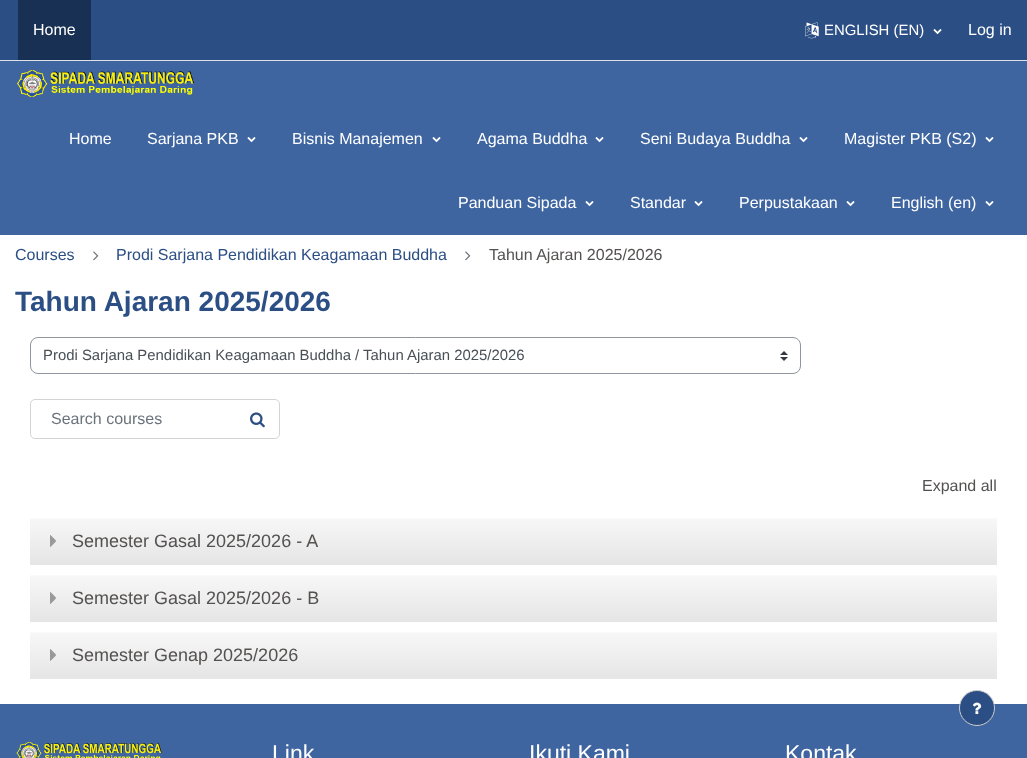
(async () => {
const canvas = document.querySelector("canvas")
canvas.width = 1027
canvas.height = 758
const c = canvas.getContext("2d")
c.miterLimit = 4
c.fontKerning = "normal"
function T(s,x,y){c.fillText(s,x,y)}
function R(x,y,w,h){c.fillRect(x,y,w,h)}
async function I(src,x,y,w,h){const img=new Image();img.src=src;await img.decode();c.drawImage(img,x,y,w,h)}
let gradient
c.fillStyle="#fff"
R(0,0,1027,758)
c.fillStyle="#2b4e84"
R(0,0,1027,60)
c.fillStyle="#dee2e6"
R(0,60,1027,1)
c.fillStyle="#183054"
R(18,0,73,60)
c.font="16px Liberation Sans"
c.fillStyle="#fff"
T("Home",33,35)
await I("1.png",805,22,14,17)
c.font="14.9px Liberation Sans"
T("ENGLISH (EN)",824,35)
await I("2.png",933,29,9,6)
c.font="16px Liberation Sans"
T("Log in",968,35)
c.fillStyle="#3e65a0"
R(0,61,1027,174)
await I("3.png",17,70,177,27)
c.fillStyle="#fff"
T("Home",69,144)
T("Sarjana PKB",147,144)
await I("4.png",247,137,9,6)
T("Bisnis Manajemen",292,144)
await I("4.png",432,137,9,6)
T("Agama Buddha",477,144)
await I("4.png",595,137,9,6)
T("Seni Budaya Buddha",640,144)
await I("4.png",799,137,9,6)
T("Magister PKB (S2)",844,144)
await I("4.png",985,137,9,6)
T("Panduan Sipada",458,208)
await I("4.png",585,201,9,6)
T("Standar",630,208)
await I("4.png",694,201,9,6)
T("Perpustakaan",739,208)
await I("4.png",846,201,9,6)
T("English (en)",891,208)
await I("4.png",985,201,9,6)
c.fillStyle="#2b4e84"
T("Courses",15,260)
await I("5.png",93,251,6,10)
T("Prodi Sarjana Pendidikan Keagamaan Buddha",116,260)
await I("5.png",465,251,6,10)
c.fillStyle="#545251"
T("Tahun Ajaran 2025/2026",489,260)
c.font="bold 28px Liberation Sans"
c.fillStyle="#2b4e84"
T("Tahun Ajaran 2025/2026",15,311)
await I("6.png",780,351,8,10)
c.beginPath()
c.roundRect(30.5,337.5,770,36,7.5)
c.strokeStyle="#8f959e"
c.stroke()
c.font="14.9px Liberation Sans"
c.fillStyle="#495057"
T("Prodi Sarjana Pendidikan Keagamaan Buddha / Tahun Ajaran 2025/2026",43,360)
c.beginPath()
c.roundRect(30.5,399.5,249,39,4.5)
c.strokeStyle="#d4d4d4"
c.stroke()
c.font="16px Liberation Sans"
c.fillStyle="#6a737b"
T("Search courses",51,424)
await I("7.png",250,412,15,16)
c.fillStyle="#545251"
T("Expand all",922,491)
gradient = c.createLinearGradient(514,517,514,565)
gradient.addColorStop(0,"#fff")
gradient.addColorStop(.05,"#f7f7f7")
gradient.addColorStop(1,"#e5e5e5")
c.fillStyle = gradient
R(30,518,967,47)
await I("8.png",50,535,6,12)
c.font="18px Liberation Sans"
c.fillStyle="#545251"
T("Semester Gasal 2025/2026 - A",72,547)
gradient = c.createLinearGradient(514,574,514,622)
gradient.addColorStop(0,"#fff")
gradient.addColorStop(.05,"#f7f7f7")
gradient.addColorStop(1,"#e5e5e5")
c.fillStyle = gradient
R(30,575,967,47)
await I("8.png",50,592,6,12)
c.fillStyle="#545251"
T("Semester Gasal 2025/2026 - B",72,604)
gradient = c.createLinearGradient(514,631,514,679)
gradient.addColorStop(0,"#fff")
gradient.addColorStop(.05,"#f7f7f7")
gradient.addColorStop(1,"#e5e5e5")
c.fillStyle = gradient
R(30,632,967,47)
await I("8.png",50,649,6,12)
c.fillStyle="#545251"
T("Semester Genap 2025/2026",72,661)
c.fillStyle="#3e65a0"
R(0,704,1027,54)
c.fillStyle="#2b4e84"
c.beginPath()
c.arc(977,708,17.5,0,7)
c.fill()
c.strokeStyle="#cdcdcd"
c.stroke()
await I("9.png",972,702,10,12)
await I("10.png",16,742,146,16)
c.font="23px Liberation Sans"
c.fillStyle="#fff"
T("Link",272,761)
T("Ikuti Kami",529,761)
T("Kontak",785,761)
})()
